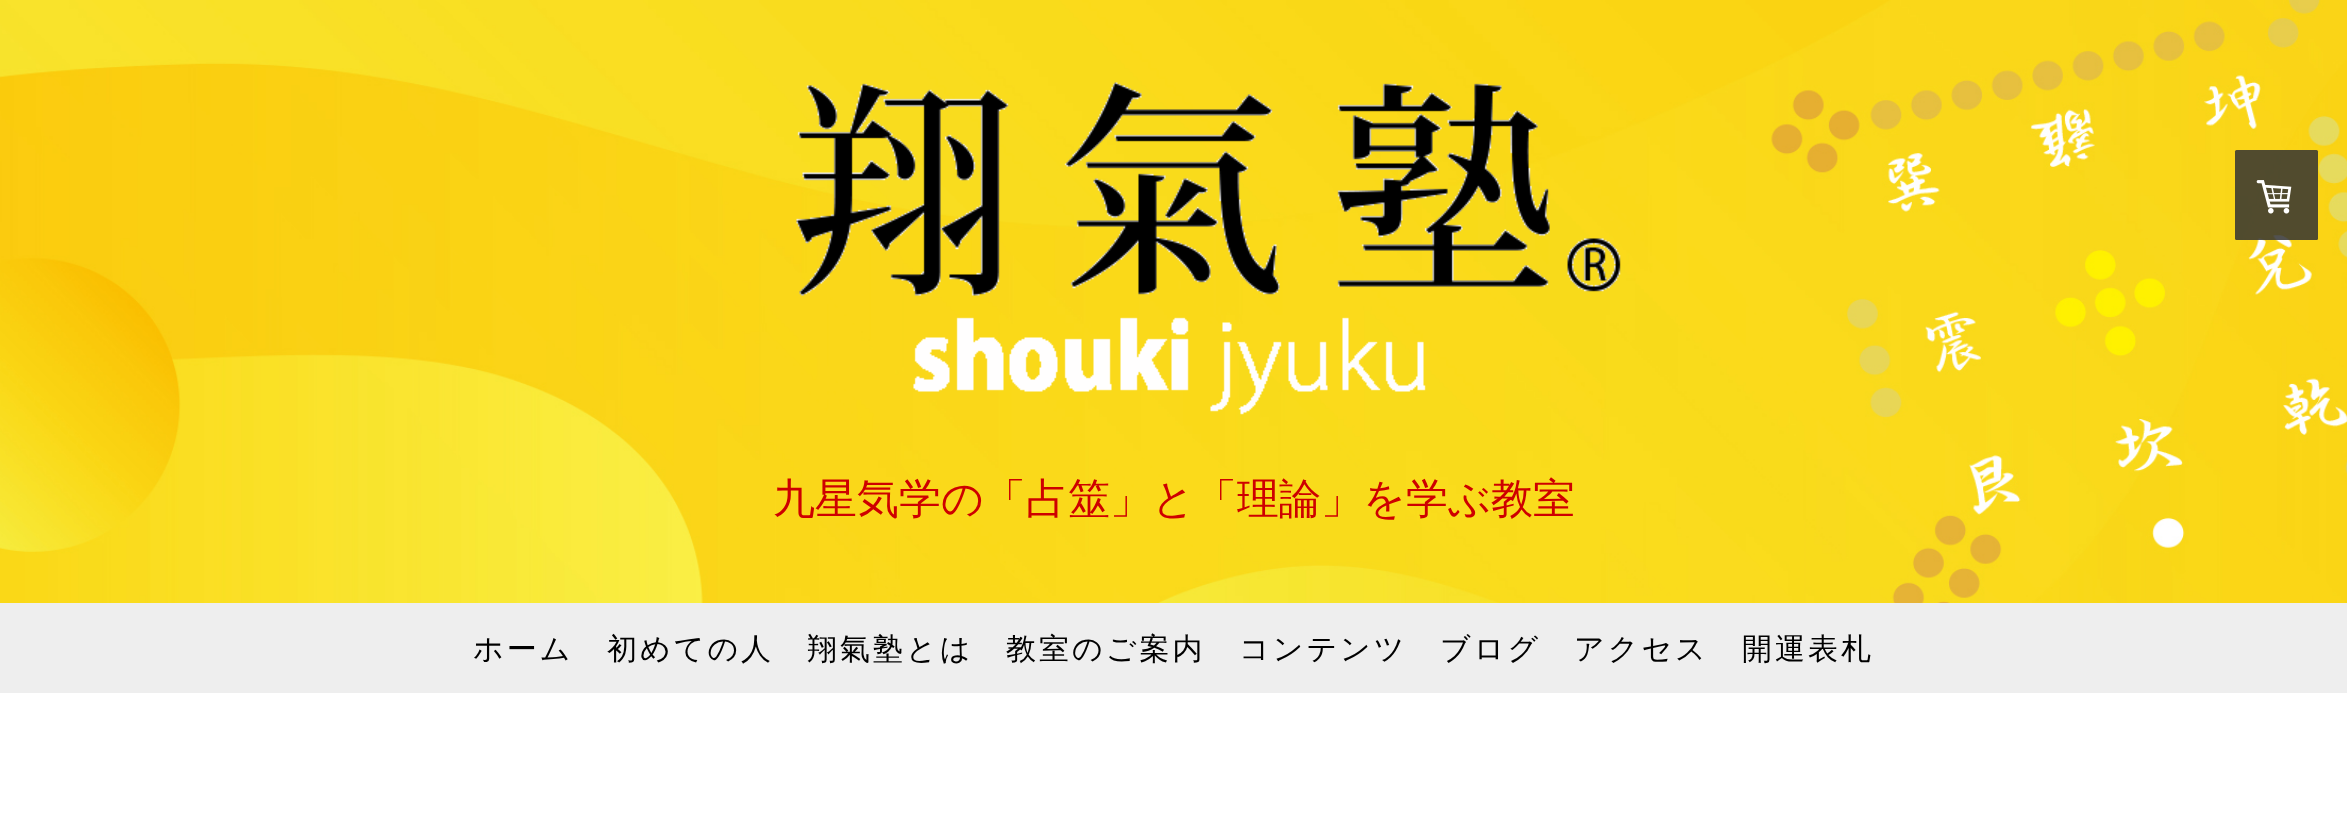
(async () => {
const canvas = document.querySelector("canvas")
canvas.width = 2347
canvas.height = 833
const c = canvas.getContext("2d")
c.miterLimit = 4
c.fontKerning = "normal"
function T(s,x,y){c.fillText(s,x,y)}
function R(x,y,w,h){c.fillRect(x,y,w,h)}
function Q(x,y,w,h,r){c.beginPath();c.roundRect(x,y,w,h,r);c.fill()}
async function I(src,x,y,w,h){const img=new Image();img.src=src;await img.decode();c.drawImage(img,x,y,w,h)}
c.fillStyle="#fff"
R(0,0,2347,833)
await I("2.png",0,0,2347,603)
c.fillStyle="#333333d9"
Q(2235,150,83,90,1.5)
await I("1.png",2256,180,36,34)
await I("3.png",796,82,825,333)
c.font="500 42px WenQuanYi Zen Hei"
c.fillStyle="#ce0000"
T("九星気学の「占筮」と「理論」を学ぶ教室",773,513)
c.fillStyle="#eee"
R(0,603,2347,90)
c.letterSpacing="3px"
c.font="500 30px WenQuanYi Zen Hei"
c.fillStyle="#000"
T("ホーム",473,659)
T("初めての人",607,659)
T("翔氣塾とは",807,659)
T("教室のご案内",1006,659)
T("コンテンツ",1239,659)
T("ブログ",1440,659)
T("アクセス",1574,659)
T("開運表札",1742,659)
})()
